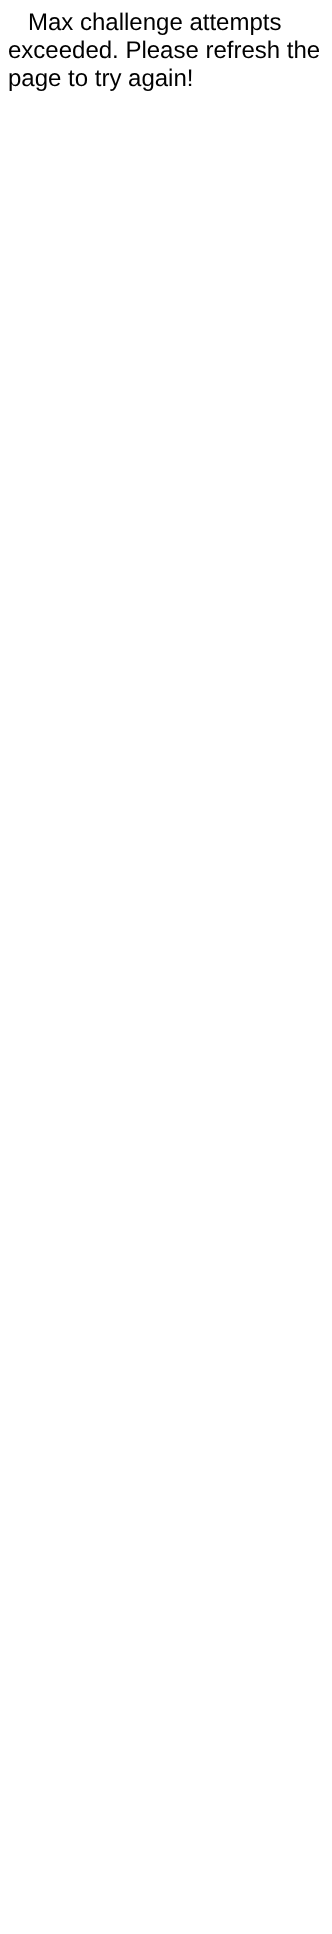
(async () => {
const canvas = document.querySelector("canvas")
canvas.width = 332
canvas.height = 1934
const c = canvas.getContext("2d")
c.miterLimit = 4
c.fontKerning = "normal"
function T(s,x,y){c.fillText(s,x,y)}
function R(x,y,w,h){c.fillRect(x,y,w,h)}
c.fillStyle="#fff"
R(0,0,332,1934)
c.font="24px Liberation Sans"
c.fillStyle="#000"
T("Max challenge attempts",28,30)
T("exceeded. Please refresh the",8,58)
T("page to try again!",8,86)
})()
